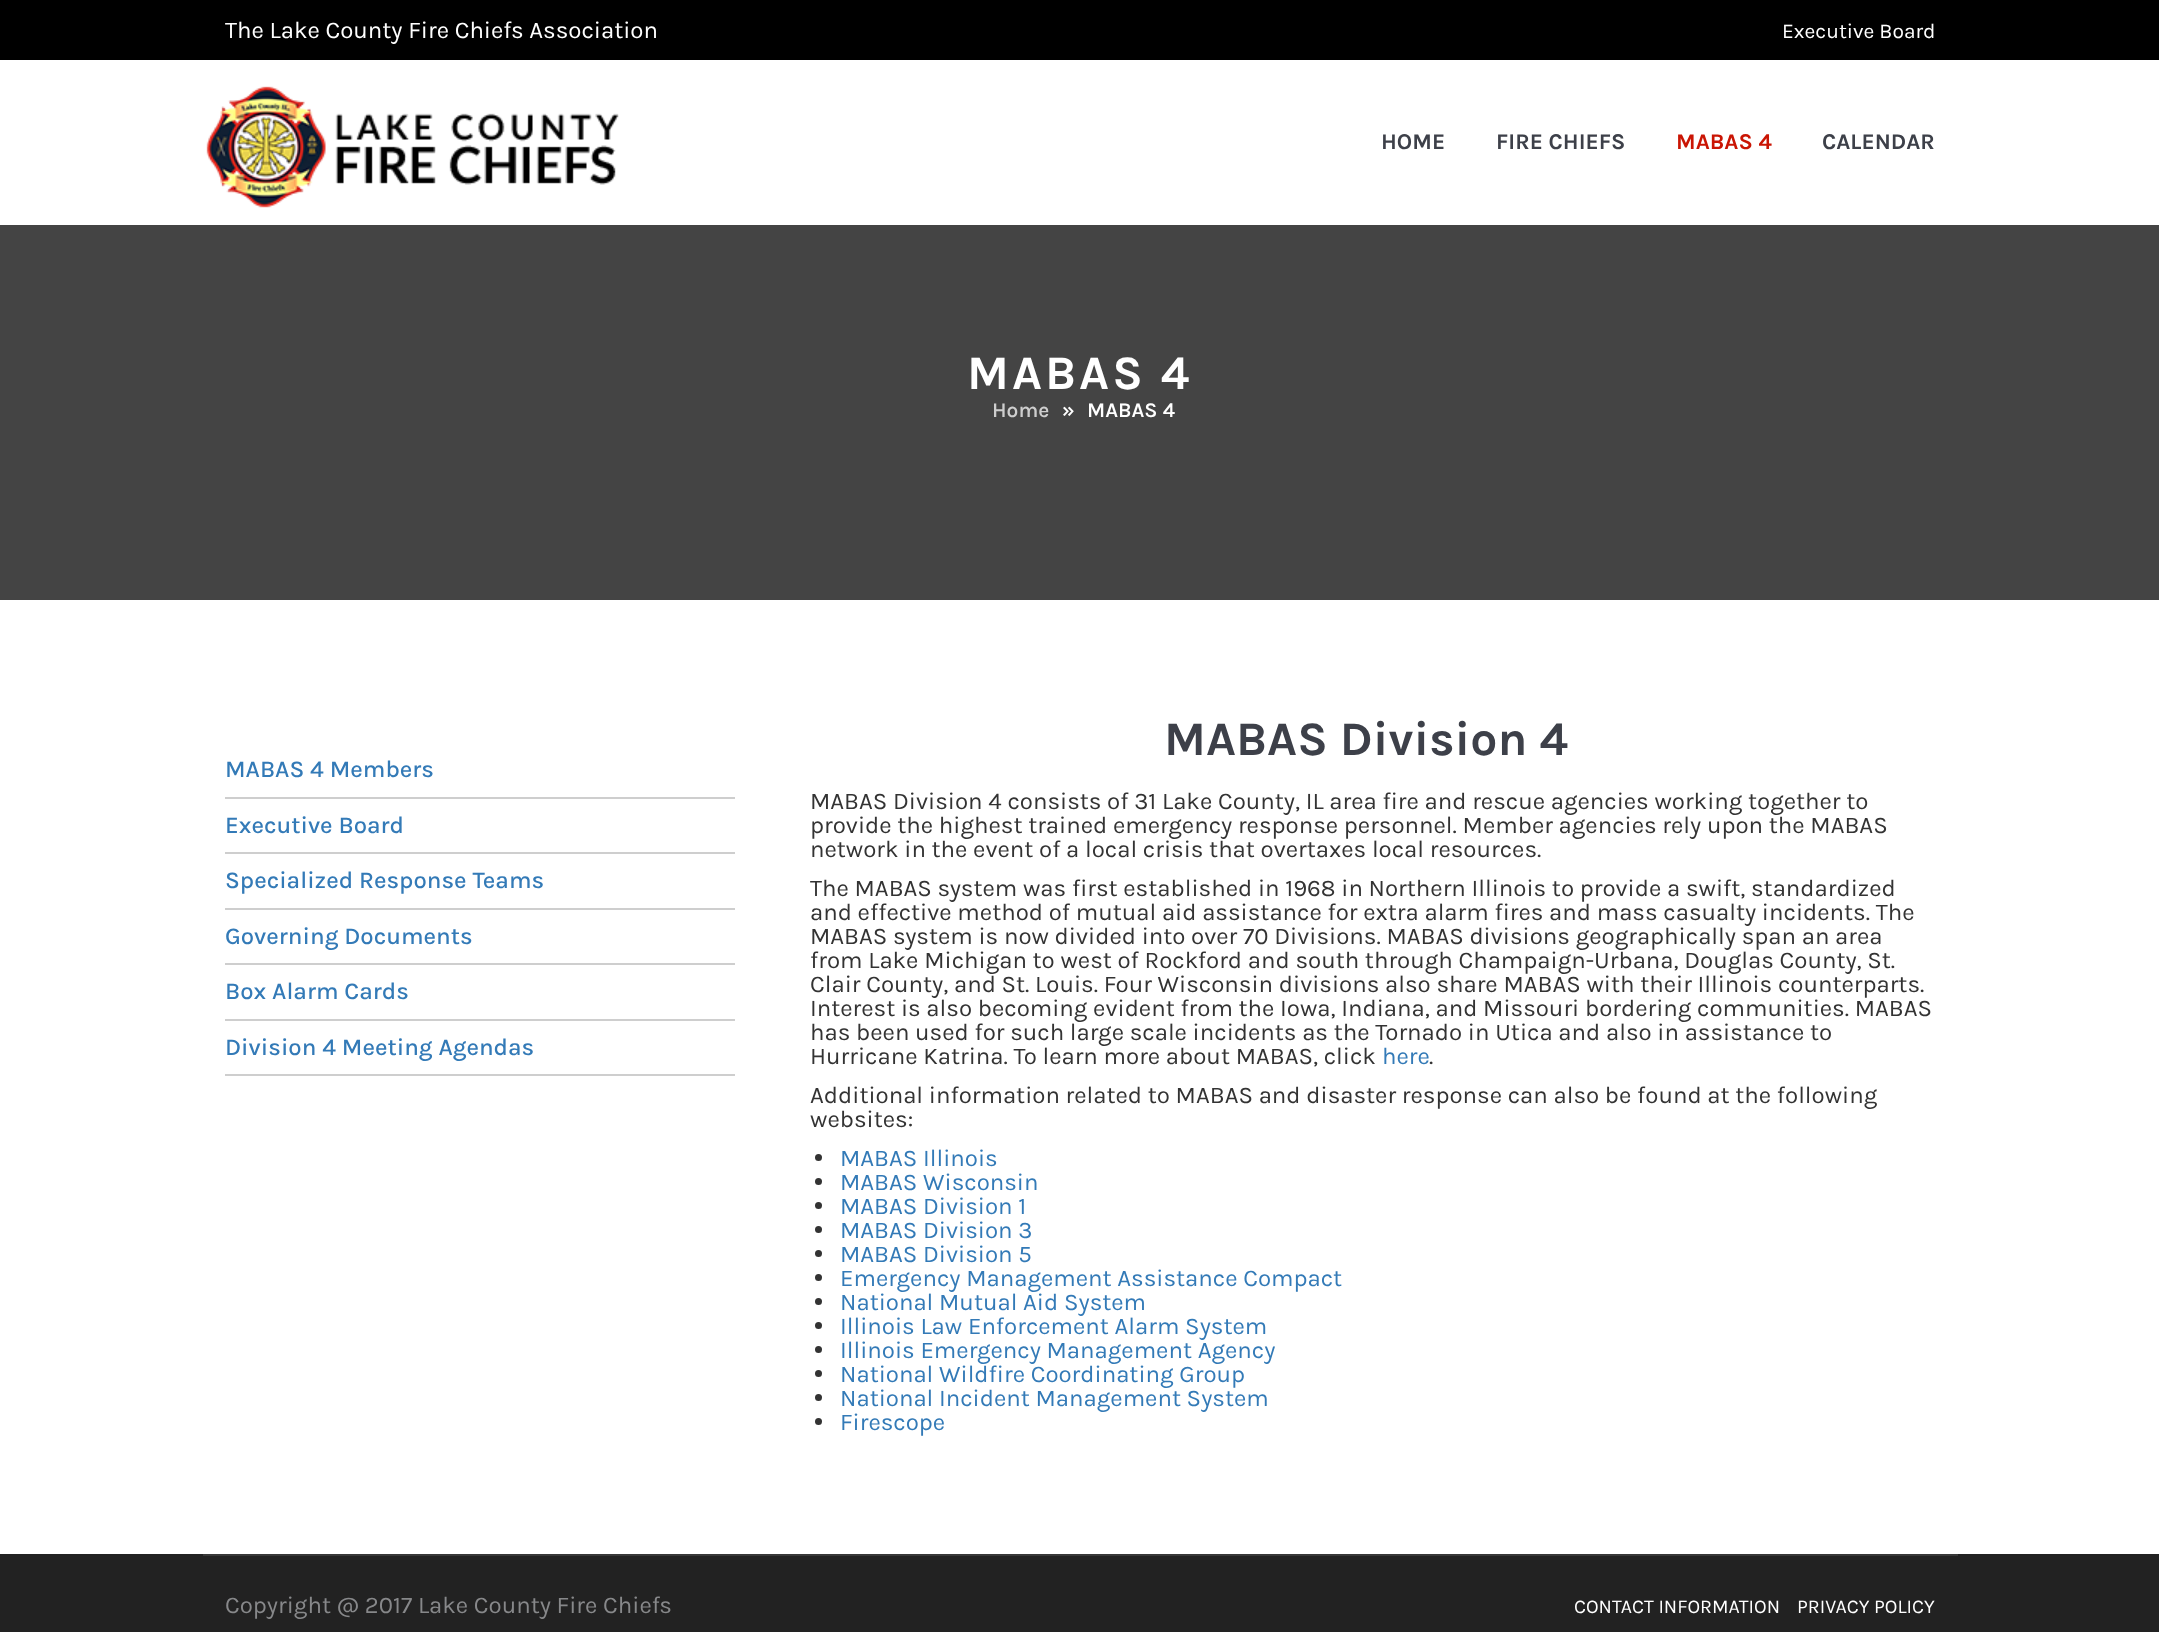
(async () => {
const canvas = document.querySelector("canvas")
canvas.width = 2159
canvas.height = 1632
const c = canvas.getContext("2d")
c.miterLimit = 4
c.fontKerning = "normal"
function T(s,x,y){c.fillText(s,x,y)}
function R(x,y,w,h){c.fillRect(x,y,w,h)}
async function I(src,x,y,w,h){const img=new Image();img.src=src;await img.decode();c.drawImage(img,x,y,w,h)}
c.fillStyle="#fff"
R(0,0,2159,1632)
c.fillStyle="#000"
R(0,0,2159,60)
c.font="24px Karla"
c.fillStyle="#fff"
T("The Lake County Fire Chiefs Association",225,38)
c.font="21px Karla"
T("Executive Board",1782,38)
await I("1.png",206,86,413,122)
c.font="bold 22.5px Karla"
c.fillStyle="#3d4049"
T("HOME",1381,149)
T("FIRE CHIEFS",1496,149)
c.fillStyle="#ca1504"
T("MABAS 4",1676,149)
c.fillStyle="#3d4049"
T("CALENDAR",1822,149)
c.fillStyle="#444"
R(0,225,2159,375)
c.letterSpacing="3px"
c.font="bold 48px Karla"
c.fillStyle="#fff"
T("MABAS 4",967,389)
c.letterSpacing="0px"
c.font="600 21px Karla"
c.fillStyle="#cecece"
T("Home",992,417)
c.fillStyle="#fff"
T("»",1062,417)
T("MABAS 4",1087,417)
c.fillStyle="#cecece"
R(225,797,510,2)
c.font="500 24px Karla"
c.fillStyle="#337ab7"
T("MABAS 4 Members",225,777)
c.fillStyle="#cecece"
R(225,852,510,2)
c.fillStyle="#337ab7"
T("Executive Board",225,833)
c.fillStyle="#cecece"
R(225,908,510,2)
c.fillStyle="#337ab7"
T("Specialized Response Teams",225,888)
c.fillStyle="#cecece"
R(225,963,510,2)
c.fillStyle="#337ab7"
T("Governing Documents",225,944)
c.fillStyle="#cecece"
R(225,1019,510,2)
c.fillStyle="#337ab7"
T("Box Alarm Cards",225,999)
c.fillStyle="#cecece"
R(225,1074,510,2)
c.fillStyle="#337ab7"
T("Division 4 Meeting Agendas",225,1055)
c.font="bold 48px Karla"
c.fillStyle="#3d4049"
T("MABAS Division 4",1164,755)
c.font="24px Karla"
c.fillStyle="#333"
T("MABAS Division 4 consists of 31 Lake County, IL area fire and rescue agencies working together to",810,809)
T("provide the highest trained emergency response personnel. Member agencies rely upon the MABAS",810,833)
T("network in the event of a local crisis that overtaxes local resources.",810,857)
T("The MABAS system was first established in 1968 in Northern Illinois to provide a swift, standardized",810,896)
T("and effective method of mutual aid assistance for extra alarm fires and mass casualty incidents. The",810,920)
T("MABAS system is now divided into over 70 Divisions. MABAS divisions geographically span an area",810,944)
T("from Lake Michigan to west of Rockford and south through Champaign-Urbana, Douglas County, St.",810,968)
T("Clair County, and St. Louis. Four Wisconsin divisions also share MABAS with their Illinois counterparts.",810,992)
T("Interest is also becoming evident from the Iowa, Indiana, and Missouri bordering communities. MABAS",810,1016)
T("has been used for such large scale incidents as the Tornado in Utica and also in assistance to",810,1040)
T("Hurricane Katrina. To learn more about MABAS, click",810,1064)
c.fillStyle="#337ab7"
T("here",1382,1064)
c.fillStyle="#333"
T(".",1429,1064)
T("Additional information related to MABAS and disaster response can also be found at the following",810,1103)
T("websites:",810,1127)
c.beginPath()
c.arc(818.5,1157.5,3.5,0,7)
c.fill()
c.fillStyle="#337ab7"
T("MABAS Illinois",840,1166)
c.fillStyle="#333"
c.beginPath()
c.arc(818.5,1181.5,3.5,0,7)
c.fill()
c.fillStyle="#337ab7"
T("MABAS Wisconsin",840,1190)
c.fillStyle="#333"
c.beginPath()
c.arc(818.5,1205.5,3.5,0,7)
c.fill()
c.fillStyle="#337ab7"
T("MABAS Division 1",840,1214)
c.fillStyle="#333"
c.beginPath()
c.arc(818.5,1229.5,3.5,0,7)
c.fill()
c.fillStyle="#337ab7"
T("MABAS Division 3",840,1238)
c.fillStyle="#333"
c.beginPath()
c.arc(818.5,1253.5,3.5,0,7)
c.fill()
c.fillStyle="#337ab7"
T("MABAS Division 5",840,1262)
c.fillStyle="#333"
c.beginPath()
c.arc(818.5,1277.5,3.5,0,7)
c.fill()
c.fillStyle="#337ab7"
T("Emergency Management Assistance Compact",840,1286)
c.fillStyle="#333"
c.beginPath()
c.arc(818.5,1301.5,3.5,0,7)
c.fill()
c.fillStyle="#337ab7"
T("National Mutual Aid System",840,1310)
c.fillStyle="#333"
c.beginPath()
c.arc(818.5,1325.5,3.5,0,7)
c.fill()
c.fillStyle="#337ab7"
T("Illinois Law Enforcement Alarm System",840,1334)
c.fillStyle="#333"
c.beginPath()
c.arc(818.5,1349.5,3.5,0,7)
c.fill()
c.fillStyle="#337ab7"
T("Illinois Emergency Management Agency",840,1358)
c.fillStyle="#333"
c.beginPath()
c.arc(818.5,1373.5,3.5,0,7)
c.fill()
c.fillStyle="#337ab7"
T("National Wildfire Coordinating Group",840,1382)
c.fillStyle="#333"
c.beginPath()
c.arc(818.5,1397.5,3.5,0,7)
c.fill()
c.fillStyle="#337ab7"
T("National Incident Management System",840,1406)
c.fillStyle="#333"
c.beginPath()
c.arc(818.5,1421.5,3.5,0,7)
c.fill()
c.fillStyle="#337ab7"
T("Firescope",840,1430)
c.fillStyle="#222"
R(0,1554,2159,78)
c.fillStyle="#383838"
R(203,1554,1755,2)
c.fillStyle="#87888a"
T("Copyright @ 2017 Lake County Fire Chiefs",225,1613)
c.font="19.5px Karla"
c.fillStyle="#fff"
T("CONTACT INFORMATION",1574,1613)
T("PRIVACY POLICY",1797,1613)
})()
